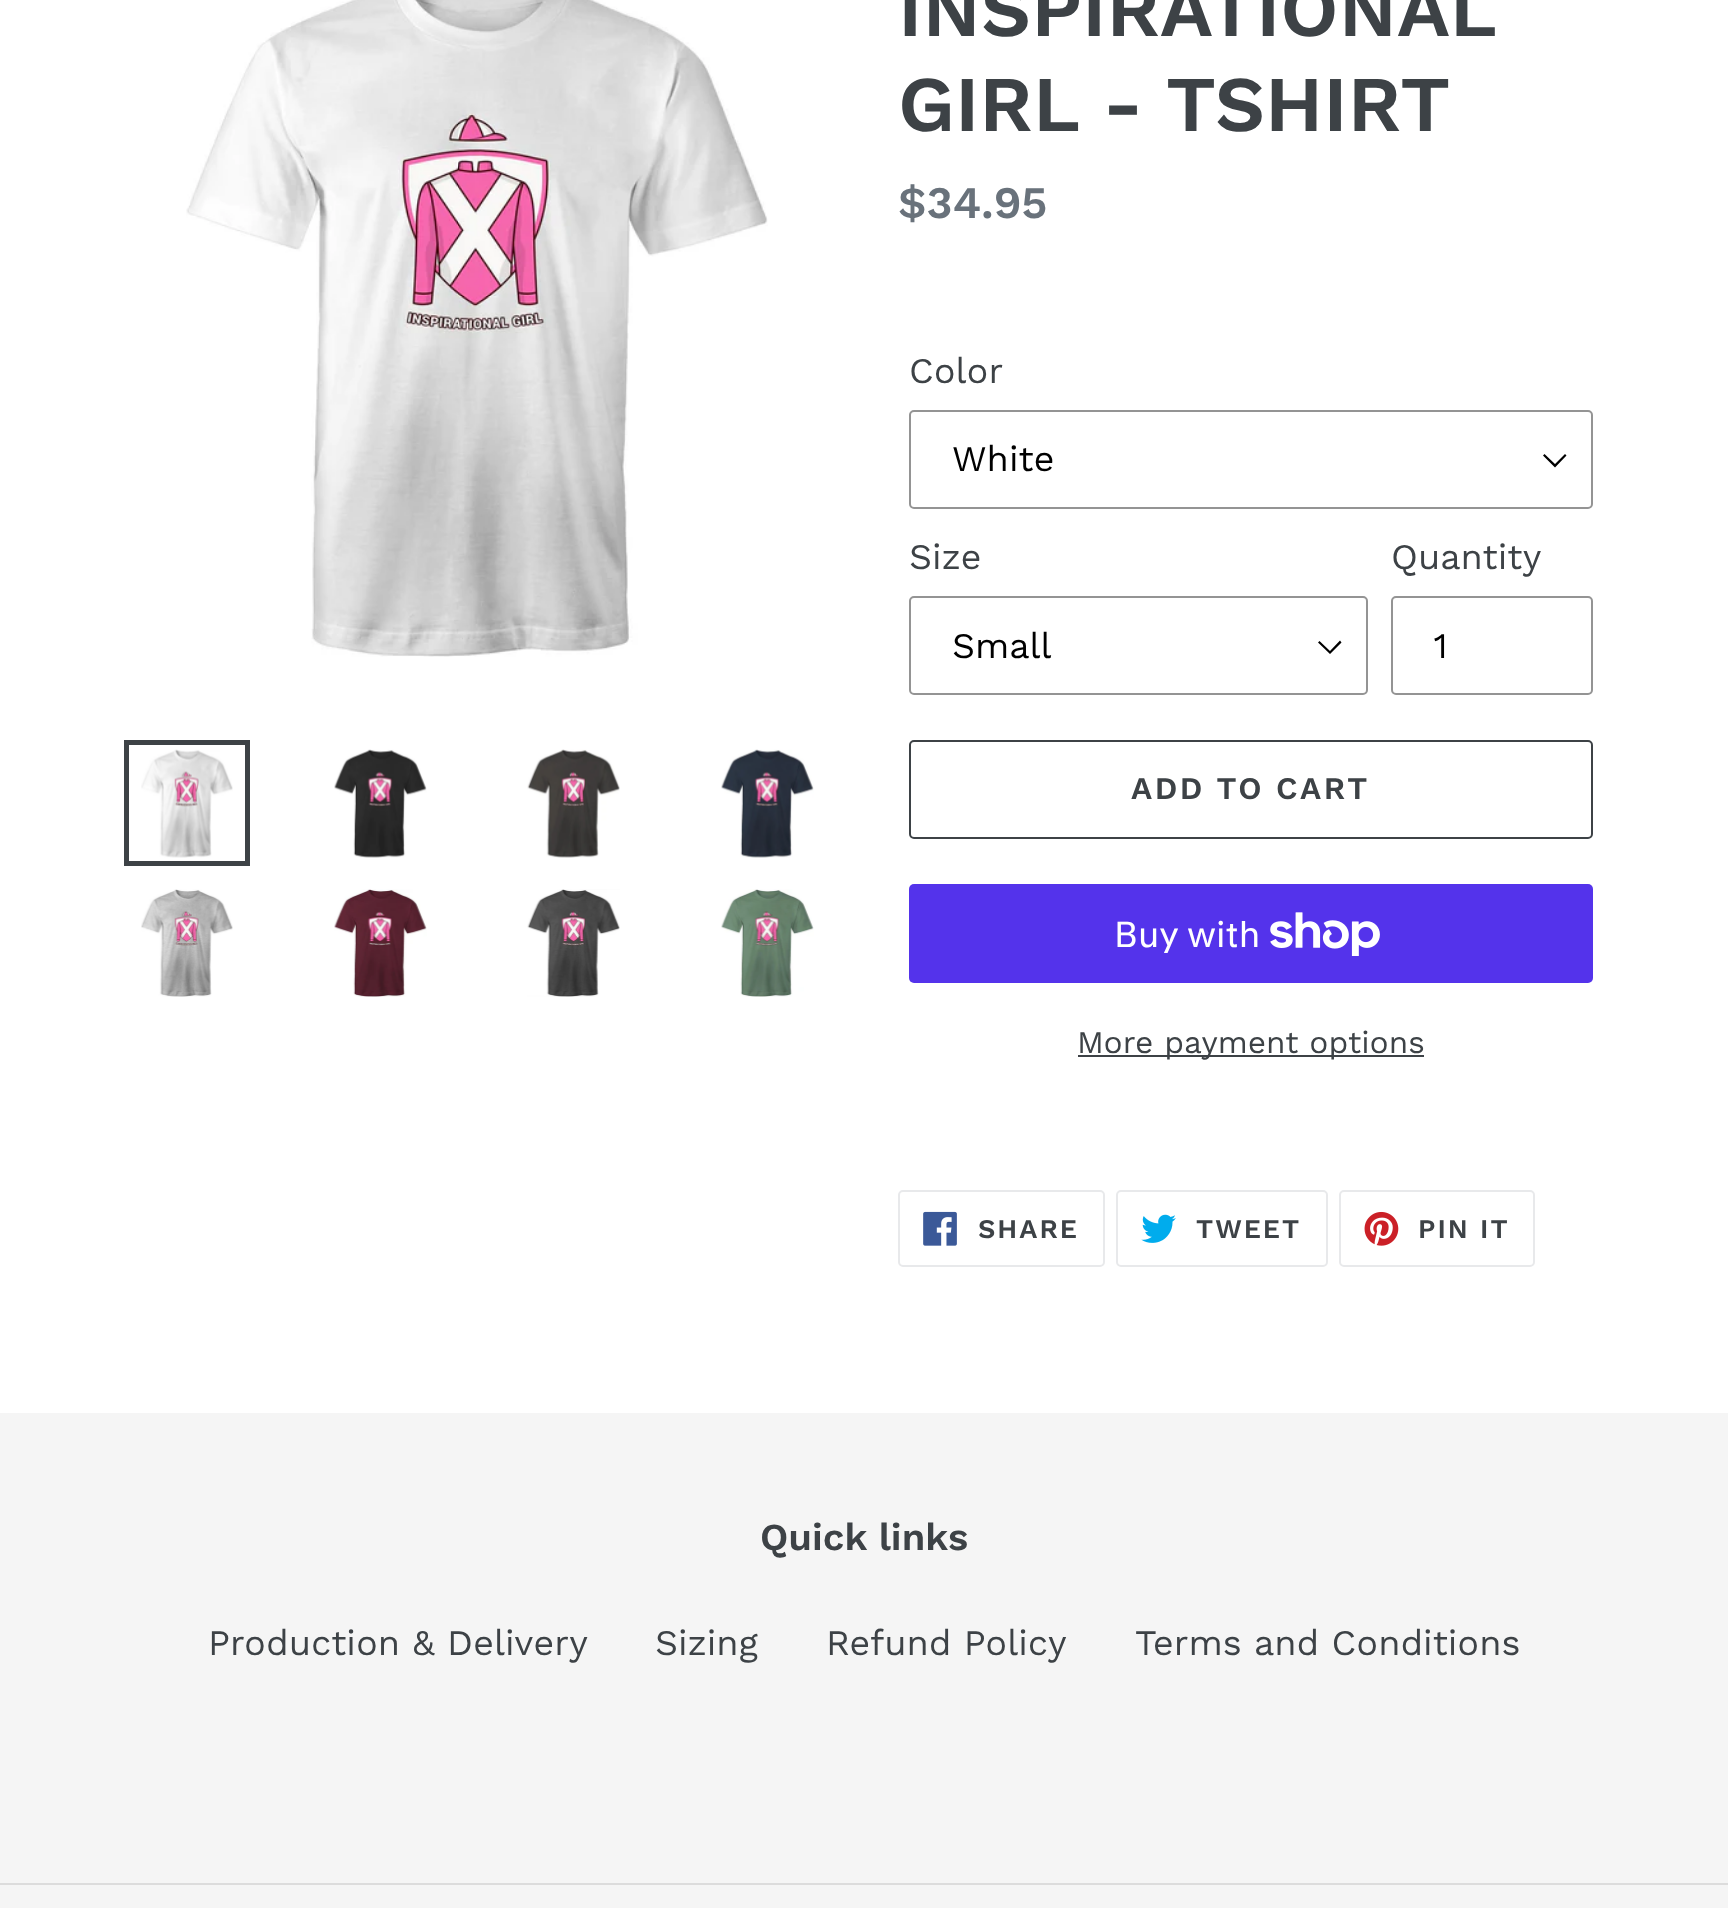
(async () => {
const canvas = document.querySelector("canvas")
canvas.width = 1728
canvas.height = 1908
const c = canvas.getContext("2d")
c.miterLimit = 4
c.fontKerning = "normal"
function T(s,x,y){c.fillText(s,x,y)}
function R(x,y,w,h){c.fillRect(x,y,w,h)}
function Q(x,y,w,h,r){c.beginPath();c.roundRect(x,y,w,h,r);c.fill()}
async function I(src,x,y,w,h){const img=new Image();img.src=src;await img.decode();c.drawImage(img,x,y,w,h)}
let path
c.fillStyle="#fff"
R(0,0,1728,1908)
await I("1.png",186,0,582,657)
c.strokeStyle="#3d4246"
c.lineWidth=5
c.strokeRect(126.5,742.5,121,121)
await I("2.png",141,749,92,109)
await I("3.png",334,749,93,109)
await I("4.png",527,749,93,109)
await I("5.png",721,749,93,109)
await I("6.png",141,889,92,108)
await I("7.png",334,889,93,108)
await I("8.png",527,889,93,108)
await I("9.png",721,889,93,108)
c.font="600 78.75px Work Sans"
c.fillStyle="#3d4246"
T("INSPIRATIONAL",898,36)
T("GIRL - TSHIRT",898,131)
c.font="600 45px Work Sans"
c.fillStyle="#69727b"
T("$34.95",898,218)
c.font="36px Work Sans"
c.fillStyle="#3d4246"
T("Color",909,383)
c.fillStyle="#000"
path = new Path2D("M1555 467.5l-12-12l1.5-1.5l10.5 10l10-10l1.5 1.5z")
c.fill(path)
c.beginPath()
c.roundRect(910,411,682,97,4)
c.strokeStyle="#949494"
c.lineWidth=2
c.stroke()
T("White",952,471)
c.fillStyle="#3d4246"
T("Size",909,569)
c.fillStyle="#000"
path = new Path2D("M1330 654l-12-11.5l1.5-1.5l10.5 10l10-10.5l1.5 2z")
c.fill(path)
c.beginPath()
c.roundRect(910,597,457,97,4)
c.stroke()
T("Small",952,658)
c.fillStyle="#3d4246"
T("Quantity",1391,569)
c.beginPath()
c.roundRect(1392,597,200,97,4)
c.stroke()
c.fillStyle="#000"
T("1",1433,658)
c.beginPath()
c.roundRect(910,741,682,97,4)
c.strokeStyle="#3d4246"
c.stroke()
c.letterSpacing="2.5px"
c.font="600 31.5px Work Sans"
c.fillStyle="#3d4246"
T("ADD TO CART",1131,799)
c.fillStyle="#5433eb"
Q(909,884,684,99,5)
c.letterSpacing="0px"
c.font="36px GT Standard"
c.fillStyle="#fff"
T("Buy with",1114,947)
await I("10.png",1270,912,110,44)
c.fillStyle="#3d4246"
R(1078,1055,346,2)
c.font="31.5px Work Sans"
T("More payment options",1077,1053)
c.beginPath()
c.roundRect(899,1191,205,75,4)
c.strokeStyle="#e8e9eb"
c.stroke()
await I("11.png",923,1211,34,35)
c.letterSpacing="2px"
c.font="600 27px Work Sans"
T("SHARE",978,1238)
c.beginPath()
c.roundRect(1117,1191,210,75,4)
c.stroke()
await I("12.png",1141,1214,35,29)
T("TWEET",1196,1238)
c.beginPath()
c.roundRect(1340,1191,194,75,4)
c.stroke()
await I("13.png",1364,1211,35,35)
T("PIN IT",1418,1238)
c.fillStyle="#f5f5f5"
R(0,1413,1728,495)
c.letterSpacing="0px"
c.font="600 38.25px Work Sans"
c.fillStyle="#3d4246"
T("Quick links",760,1550)
c.font="36px Work Sans"
T("Production & Delivery",208,1655)
T("Sizing",655,1655)
T("Refund Policy",826,1655)
T("Terms and Conditions",1135,1655)
c.fillStyle="#dcdcdc"
R(0,1883,1728,2)
})()
